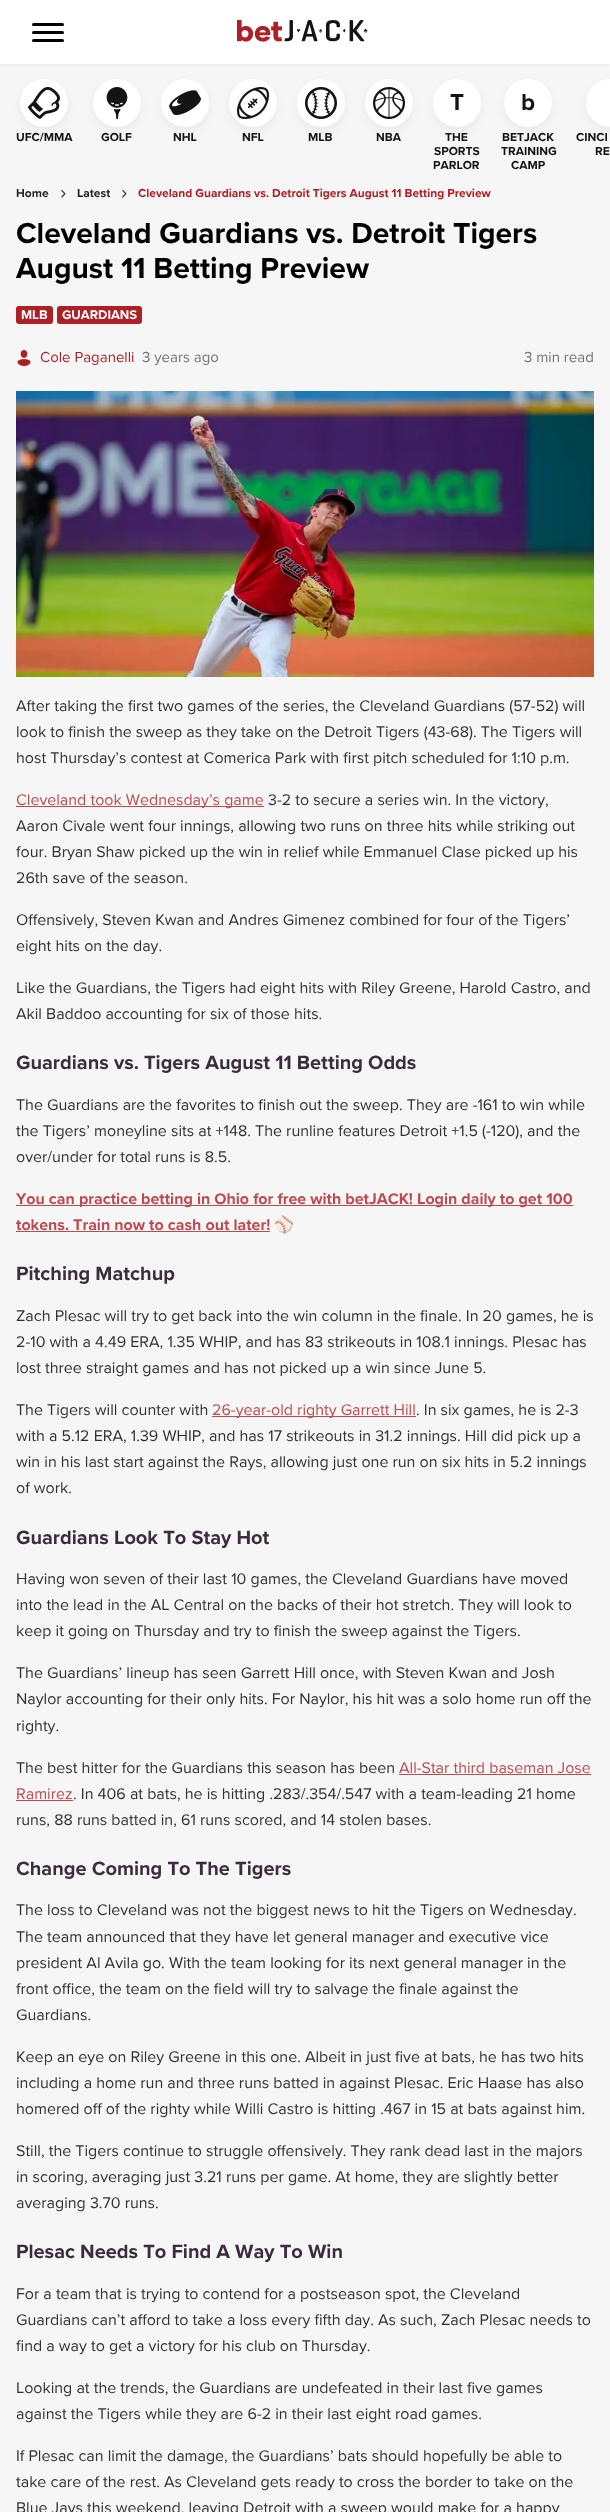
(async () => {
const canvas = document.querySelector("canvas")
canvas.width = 610
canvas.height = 2512
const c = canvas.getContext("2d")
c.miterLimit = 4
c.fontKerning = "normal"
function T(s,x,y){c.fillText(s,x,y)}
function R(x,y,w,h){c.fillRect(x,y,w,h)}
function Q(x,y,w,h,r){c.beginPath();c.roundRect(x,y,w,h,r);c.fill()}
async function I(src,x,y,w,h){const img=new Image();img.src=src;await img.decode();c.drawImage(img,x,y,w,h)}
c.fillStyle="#f6f6f6"
R(0,0,610,2512)
c.fillStyle="#0000000d"
c.filter="blur(2px)"
c.beginPath()
c.rect(0,1,610,64)
c.fill()
c.filter="none"
c.fillStyle="#fff"
R(0,0,610,64)
c.fillStyle="#000"
Q(32,31,32,3,1.5)
Q(32,23,32,3,1.5)
Q(32,39,32,3,1.5)
await I("1.png",237,20,131,22)
c.fillStyle="#0000000d"
c.filter="blur(4px)"
c.beginPath()
c.roundRect(20,83,48,48,24)
c.fill()
c.filter="none"
c.fillStyle="#fff"
c.beginPath()
c.arc(44,103,24,0,7)
c.fill()
await I("2.png",28,87,32,32)
c.font="bold 12px Proxima Nova"
c.fillStyle="#141414"
T("UFC/MMA",16,141)
c.fillStyle="#0000000d"
c.filter="blur(4px)"
c.beginPath()
c.roundRect(93,83,48,48,24)
c.fill()
c.filter="none"
c.fillStyle="#fff"
c.beginPath()
c.arc(117,103,24,0,7)
c.fill()
await I("3.png",106,87,22,32)
c.fillStyle="#141414"
T("GOLF",101,141)
c.fillStyle="#0000000d"
c.filter="blur(4px)"
c.beginPath()
c.roundRect(161,83,48,48,24)
c.fill()
c.filter="none"
c.fillStyle="#fff"
c.beginPath()
c.arc(185,103,24,0,7)
c.fill()
await I("4.png",169,90,32,25)
c.fillStyle="#141414"
T("NHL",173,141)
c.fillStyle="#0000000d"
c.filter="blur(4px)"
c.beginPath()
c.roundRect(229,83,48,48,24)
c.fill()
c.filter="none"
c.fillStyle="#fff"
c.beginPath()
c.arc(253,103,24,0,7)
c.fill()
await I("5.png",237,87,32,32)
c.fillStyle="#141414"
T("NFL",242,141)
c.fillStyle="#0000000d"
c.filter="blur(4px)"
c.beginPath()
c.roundRect(297,83,48,48,24)
c.fill()
c.filter="none"
c.fillStyle="#fff"
c.beginPath()
c.arc(321,103,24,0,7)
c.fill()
await I("6.png",305,87,32,32)
c.fillStyle="#141414"
T("MLB",308,141)
c.fillStyle="#0000000d"
c.filter="blur(4px)"
c.beginPath()
c.roundRect(365,83,48,48,24)
c.fill()
c.filter="none"
c.fillStyle="#fff"
c.beginPath()
c.arc(389,103,24,0,7)
c.fill()
await I("7.png",373,87,32,32)
c.fillStyle="#141414"
T("NBA",376,141)
c.fillStyle="#0000000d"
c.filter="blur(4px)"
c.beginPath()
c.roundRect(433,83,48,48,24)
c.fill()
c.filter="none"
c.fillStyle="#fff"
c.beginPath()
c.arc(457,103,24,0,7)
c.fill()
c.font="bold 24px Proxima Nova"
c.fillStyle="#141414"
T("T",450,110)
c.font="bold 12px Proxima Nova"
T("THE",445,141)
T("SPORTS",434,155)
T("PARLOR",433,169)
c.fillStyle="#0000000d"
c.filter="blur(4px)"
c.beginPath()
c.roundRect(504,83,48,48,24)
c.fill()
c.filter="none"
c.fillStyle="#fff"
c.beginPath()
c.arc(528,103,24,0,7)
c.fill()
c.font="bold 24px Proxima Nova"
c.fillStyle="#141414"
T("b",521,110)
c.font="bold 12px Proxima Nova"
T("BETJACK",502,141)
T("TRAINING",501,155)
T("CAMP",511,169)
c.fillStyle="#0000000d"
c.filter="blur(4px)"
c.beginPath()
c.roundRect(586,83,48,48,24)
c.fill()
c.filter="none"
c.fillStyle="#fff"
c.beginPath()
c.roundRect(586,79,24,48,[24,0,0,24])
c.fill()
c.fillStyle="#141414"
T("CINCI",576,141)
T("RE",595,155)
c.fillStyle="#252525"
T("Home",16,197)
await I("8.png",61,189,5,9)
T("Latest",77,197)
await I("8.png",122,189,5,9)
c.fillStyle="#ad2025"
T("Cleveland Guardians vs. Detroit Tigers August 11 Betting Preview",138,197)
c.font="bold 30px Proxima Nova"
c.fillStyle="#000"
T("Cleveland Guardians vs. Detroit Tigers",16,243)
T("August 11 Betting Preview",16,278)
c.fillStyle="#ad2025"
Q(16,306,37,18,3)
c.font="bold 13px Proxima Nova"
c.fillStyle="#fff"
T("MLB",21,319)
c.fillStyle="#ad2025"
Q(57,306,85,18,3)
c.fillStyle="#fff"
T("GUARDIANS",62,319)
await I("9.png",17,350,14,16)
c.font="15px Proxima Nova"
c.fillStyle="#ad2025"
T("Cole Paganelli",40,362)
c.fillStyle="#727272"
T("3 years ago",142,362)
T("3 min read",524,362)
await I("10.png",16,391,578,286)
c.font="16px Proxima Nova"
c.fillStyle="#313131"
T("After taking the first two games of the series, the Cleveland Guardians (57-52) will",16,711)
T("look to finish the sweep as they take on the Detroit Tigers (43-68). The Tigers will",16,737)
T("host Thursday’s contest at Comerica Park with first pitch scheduled for 1:10 p.m.",16,763)
c.fillStyle="#bc4b4f"
R(16,806,248,1)
T("Cleveland took Wednesday’s game",16,805)
c.fillStyle="#313131"
T("3-2 to secure a series win. In the victory,",268,805)
T("Aaron Civale went four innings, allowing two runs on three hits while striking out",16,831)
T("four. Bryan Shaw picked up the win in relief while Emmanuel Clase picked up his",16,857)
T("26th save of the season.",16,883)
T("Offensively, Steven Kwan and Andres Gimenez combined for four of the Tigers’",16,925)
T("eight hits on the day.",16,951)
T("Like the Guardians, the Tigers had eight hits with Riley Greene, Harold Castro, and",16,993)
T("Akil Baddoo accounting for six of those hits.",16,1019)
c.font="bold 20px Proxima Nova"
c.fillStyle="#3b2d3d"
T("Guardians vs. Tigers August 11 Betting Odds",16,1069)
c.font="16px Proxima Nova"
c.fillStyle="#313131"
T("The Guardians are the favorites to finish out the sweep. They are -161 to win while",16,1110)
T("the Tigers’ moneyline sits at +148. The runline features Detroit +1.5 (-120), and the",16,1136)
T("over/under for total runs is 8.5.",16,1162)
c.fillStyle="#bc4b4f"
R(16,1205,557,1)
c.font="bold 16px Proxima Nova"
T("You can practice betting in Ohio for free with betJACK! Login daily to get 100",16,1204)
T("tokens. Train now to cash out later!",16,1230)
R(16,1231,254,1)
c.font="bold 16px Noto Color Emoji"
c.fillStyle="#313131"
T("⚾",274,1230)
c.font="bold 20px Proxima Nova"
c.fillStyle="#3b2d3d"
T("Pitching Matchup",16,1280)
c.font="16px Proxima Nova"
c.fillStyle="#313131"
T("Zach Plesac will try to get back into the win column in the finale. In 20 games, he is",16,1321)
T("2-10 with a 4.49 ERA, 1.35 WHIP, and has 83 strikeouts in 108.1 innings. Plesac has",16,1347)
T("lost three straight games and has not picked up a win since June 5.",16,1373)
T("The Tigers will counter with",16,1415)
c.fillStyle="#bc4b4f"
R(212,1416,204,1)
T("26-year-old righty Garrett Hill",212,1415)
c.fillStyle="#313131"
T(". In six games, he is 2-3",416,1415)
T("with a 5.12 ERA, 1.39 WHIP, and has 17 strikeouts in 31.2 innings. Hill did pick up a",16,1441)
T("win in his last start against the Rays, allowing just one run on six hits in 5.2 innings",16,1467)
T("of work.",16,1493)
c.font="bold 20px Proxima Nova"
c.fillStyle="#3b2d3d"
T("Guardians Look To Stay Hot",16,1544)
c.font="16px Proxima Nova"
c.fillStyle="#313131"
T("Having won seven of their last 10 games, the Cleveland Guardians have moved",16,1584)
T("into the lead in the AL Central on the backs of their hot stretch. They will look to",16,1610)
T("keep it going on Thursday and try to finish the sweep against the Tigers.",16,1636)
T("The Guardians’ lineup has seen Garrett Hill once, with Steven Kwan and Josh",16,1678)
T("Naylor accounting for their only hits. For Naylor, his hit was a solo home run off the",16,1704)
T("righty.",16,1731)
T("The best hitter for the Guardians this season has been",16,1773)
c.fillStyle="#bc4b4f"
T("All-Star third baseman Jose",399,1773)
R(399,1774,192,1)
T("Ramirez",16,1799)
R(16,1800,57,1)
c.fillStyle="#313131"
T(". In 406 at bats, he is hitting .283/.354/.547 with a team-leading 21 home",73,1799)
T("runs, 88 runs batted in, 61 runs scored, and 14 stolen bases.",16,1825)
c.font="bold 20px Proxima Nova"
c.fillStyle="#3b2d3d"
T("Change Coming To The Tigers",16,1875)
c.font="16px Proxima Nova"
c.fillStyle="#313131"
T("The loss to Cleveland was not the biggest news to hit the Tigers on Wednesday.",16,1915)
T("The team announced that they have let general manager and executive vice",16,1942)
T("president Al Avila go. With the team looking for its next general manager in the",16,1968)
T("front office, the team on the field will try to salvage the finale against the",16,1994)
T("Guardians.",16,2020)
T("Keep an eye on Riley Greene in this one. Albeit in just five at bats, he has two hits",16,2062)
T("including a home run and three runs batted in against Plesac. Eric Haase has also",16,2088)
T("homered off of the righty while Willi Castro is hitting .467 in 15 at bats against him.",16,2114)
T("Still, the Tigers continue to struggle offensively. They rank dead last in the majors",16,2156)
T("in scoring, averaging just 3.21 runs per game. At home, they are slightly better",16,2182)
T("averaging 3.70 runs.",16,2208)
c.font="bold 20px Proxima Nova"
c.fillStyle="#3b2d3d"
T("Plesac Needs To Find A Way To Win",16,2258)
c.font="16px Proxima Nova"
c.fillStyle="#313131"
T("For a team that is trying to contend for a postseason spot, the Cleveland",16,2299)
T("Guardians can’t afford to take a loss every fifth day. As such, Zach Plesac needs to",16,2325)
T("find a way to get a victory for his club on Thursday.",16,2351)
T("Looking at the trends, the Guardians are undefeated in their last five games",16,2393)
T("against the Tigers while they are 6-2 in their last eight road games.",16,2419)
T("If Plesac can limit the damage, the Guardians’ bats should hopefully be able to",16,2461)
T("take care of the rest. As Cleveland gets ready to cross the border to take on the",16,2487)
T("Blue Jays this weekend, leaving Detroit with a sweep would make for a happy",16,2513)
})()
